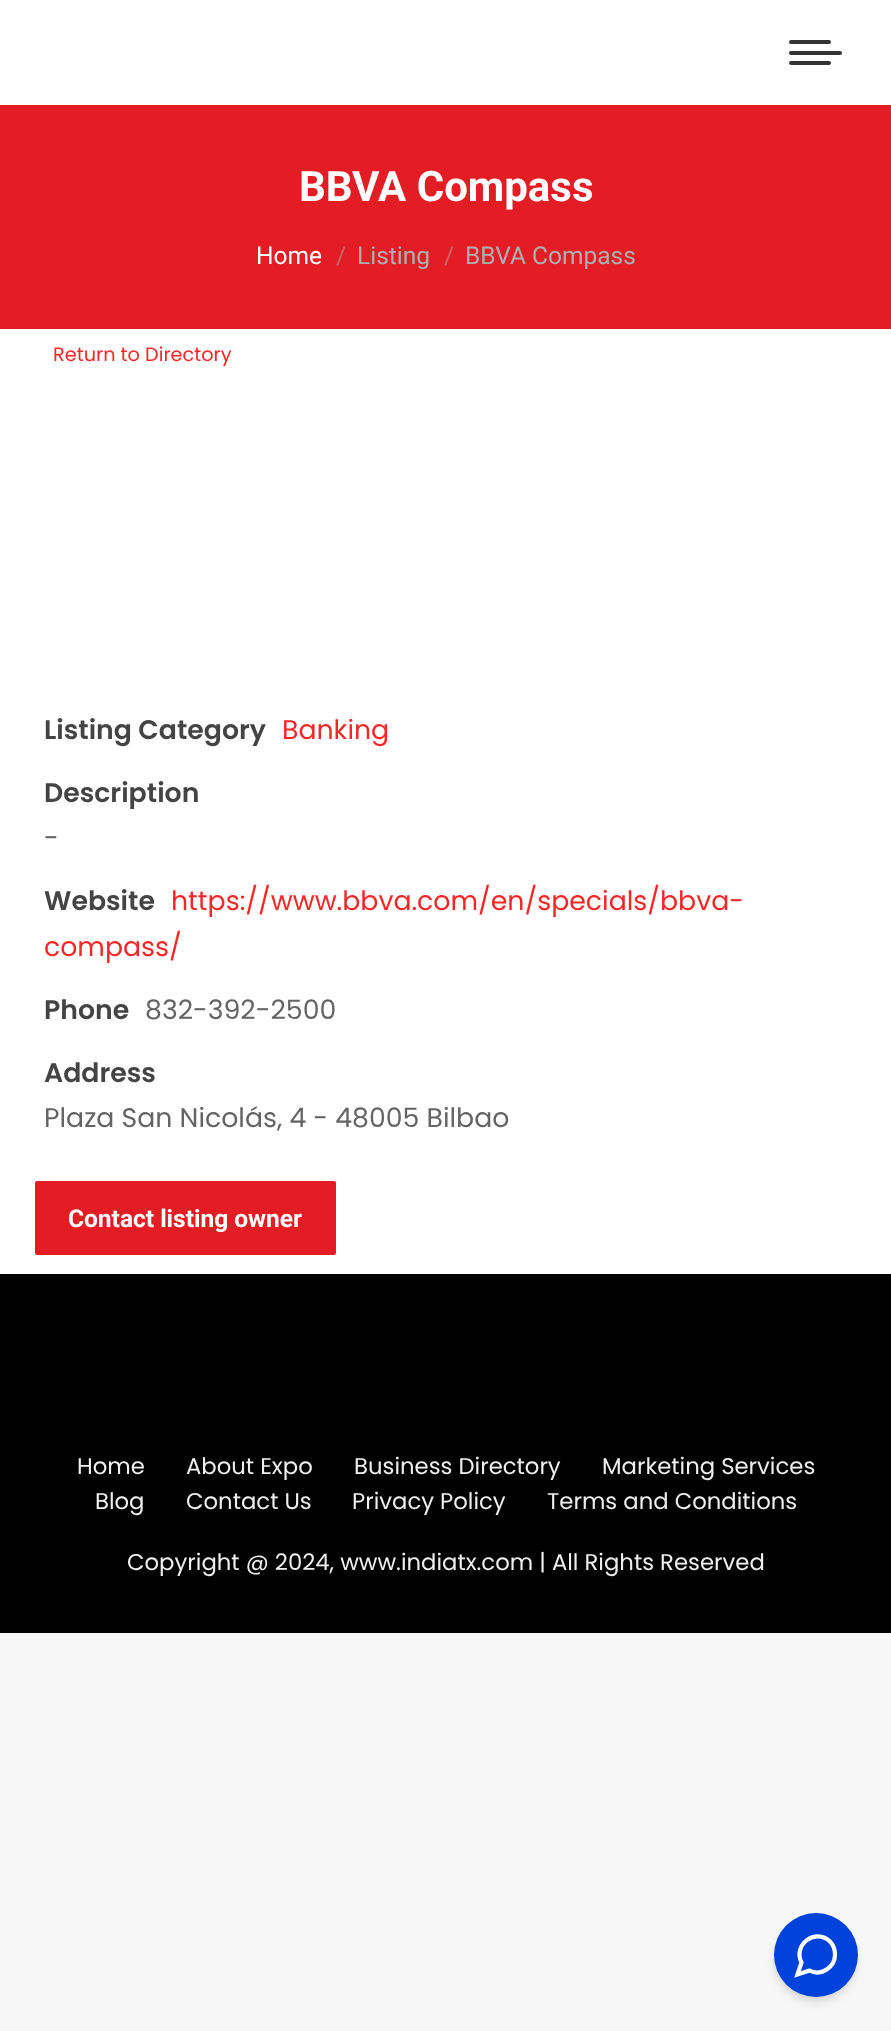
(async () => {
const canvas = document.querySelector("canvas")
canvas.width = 891
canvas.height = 2031
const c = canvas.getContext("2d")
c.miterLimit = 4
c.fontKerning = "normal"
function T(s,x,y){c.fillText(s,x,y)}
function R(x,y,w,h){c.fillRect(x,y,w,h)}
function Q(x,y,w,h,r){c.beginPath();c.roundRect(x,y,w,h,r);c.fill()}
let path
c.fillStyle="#f7f7f7"
R(0,0,891,2031)
c.fillStyle="#fff"
R(0,0,891,1274)
c.fillStyle="#333"
Q(789,40,42,4,2)
Q(789,51,53,4,2)
Q(789,61,42,4,2)
c.fillStyle="#e41d24"
R(0,105,891,224)
c.font="bold 42px Roboto"
c.fillStyle="#fff"
T("BBVA Compass",299,201)
c.font="24.5px Roboto"
T("Home",256,264)
c.fillStyle="#c9666c"
T("/",336,264)
c.fillStyle="#adafb3"
T("Listing",357,264)
c.fillStyle="#c9666c"
T("/",444,264)
c.fillStyle="#adafb3"
T("BBVA Compass",465,264)
c.font="19.25px Poppins"
c.fillStyle="#f82727"
T("Return to Directory",53,361)
c.font="600 26.75px Poppins"
c.fillStyle="#444"
T("Listing Category",44,739)
c.font="26.75px Poppins"
c.fillStyle="#f82727"
T("Banking",282,739)
c.font="600 26.75px Poppins"
c.fillStyle="#444"
T("Description",44,802)
c.font="26.75px Poppins"
c.fillStyle="#646464"
T("-",44,847)
c.font="600 26.75px Poppins"
c.fillStyle="#444"
T("Website",44,910)
c.font="26.75px Poppins"
c.fillStyle="#f82727"
T("https://www.bbva.com/en/specials/bbva-",171,910)
T("compass/",44,956)
c.font="600 26.75px Poppins"
c.fillStyle="#444"
T("Phone",44,1019)
c.font="26.75px Poppins"
c.fillStyle="#646464"
T("832-392-2500",145,1019)
c.font="600 26.75px Poppins"
c.fillStyle="#444"
T("Address",44,1082)
c.font="26.75px Poppins"
c.fillStyle="#646464"
T("Plaza San Nicolás, 4 - 48005 Bilbao",44,1127)
c.fillStyle="#e41d24"
c.beginPath()
c.roundRect(36,1182,299,72,1)
c.fill()
c.strokeStyle="#e41d24"
c.lineWidth=2
c.stroke()
c.font="bold 24.5px Roboto"
c.fillStyle="#fff"
T("Contact listing owner",68,1227)
c.fillStyle="#000"
R(0,1274,891,359)
c.font="22.75px Poppins"
c.fillStyle="#eee"
T("Home",77,1474)
T("About Expo",186,1474)
T("Business Directory",354,1474)
T("Marketing Services",602,1474)
T("Blog",95,1509)
T("Contact Us",186,1509)
T("Privacy Policy",352,1509)
T("Terms and Conditions",547,1509)
T("Copyright @ 2024, www.indiatx.com | All Rights Reserved",127,1570)
c.fillStyle="#0000001a"
c.filter="blur(3.5px)"
c.beginPath()
c.roundRect(777,1920,77,77,38.5)
c.fill()
c.filter="none"
c.filter="blur(5px)"
c.beginPath()
c.roundRect(775,1922,81,80,40)
c.fill()
c.filter="none"
c.fillStyle="#0042da"
c.beginPath()
c.arc(816,1955,42,0,7)
c.fill()
path = new Path2D("M835 1954.5c0 13-14 22-25.5 16l-12 4l4-12c-9-17.5 14-35 28.5-21c3.5 3.5 5 8 5 13z")
c.strokeStyle="#fff"
c.lineWidth=4.2
c.stroke(path)
})()
